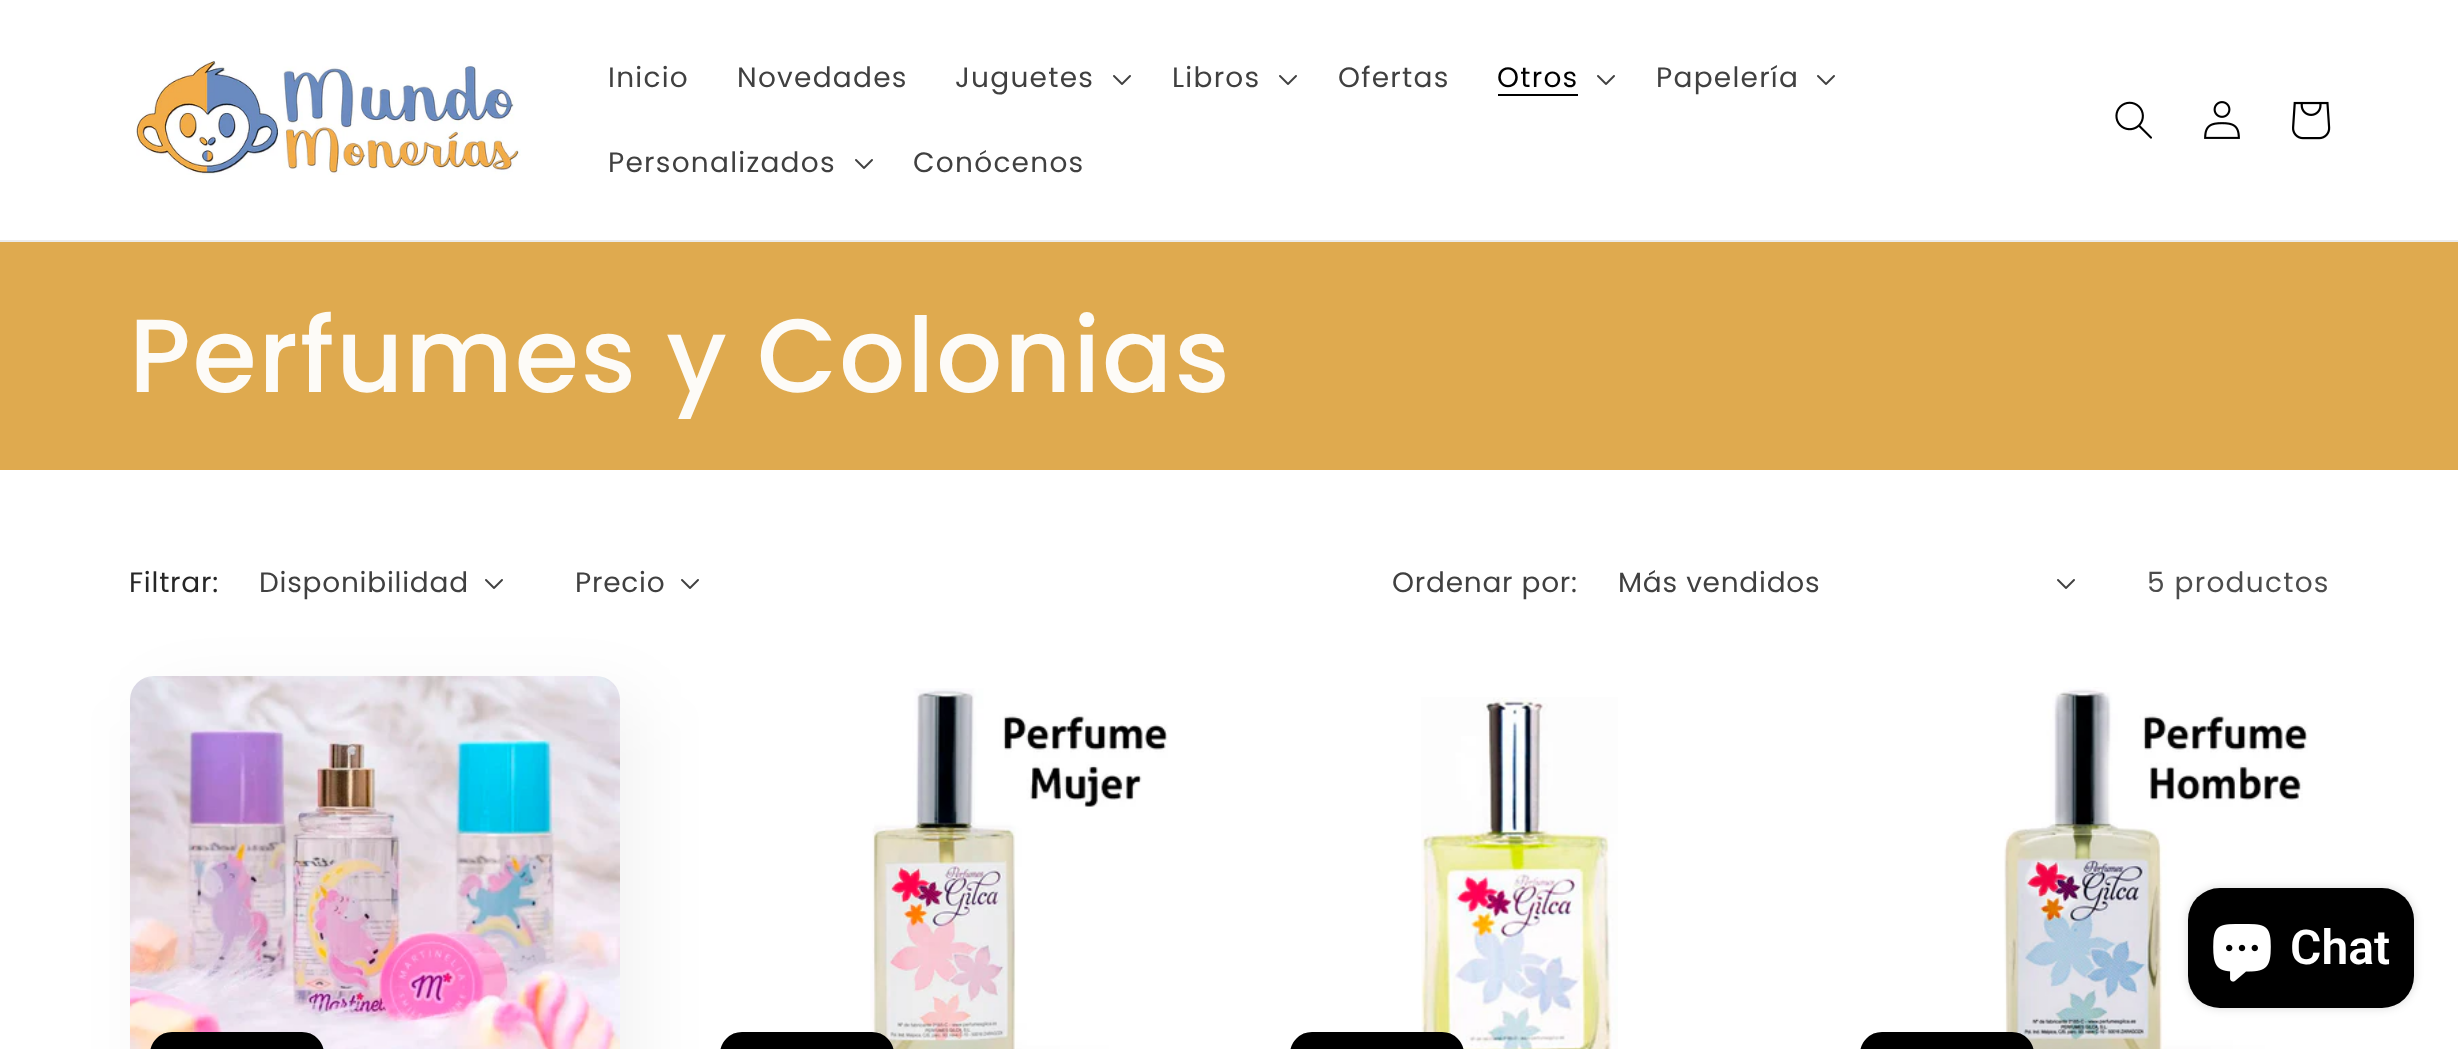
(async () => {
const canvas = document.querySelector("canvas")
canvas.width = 2458
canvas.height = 1049
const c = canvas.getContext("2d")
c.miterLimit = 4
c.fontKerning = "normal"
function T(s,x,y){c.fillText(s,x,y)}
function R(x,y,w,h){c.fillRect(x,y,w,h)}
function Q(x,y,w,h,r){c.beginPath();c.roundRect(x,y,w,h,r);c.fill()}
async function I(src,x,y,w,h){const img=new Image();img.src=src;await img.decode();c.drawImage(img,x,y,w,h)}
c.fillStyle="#fff"
R(0,0,2458,1049)
c.fillStyle="#ebebeb"
R(0,240,2458,2)
await I("1.png",136,60,385,115)
c.letterSpacing="1.25px"
c.font="28px Poppins"
c.fillStyle="#404040"
T("Inicio",608,87)
T("Novedades",737,87)
T("Juguetes",955,87)
await I("2.png",1113,75,18,10)
T("Libros",1172,87)
await I("2.png",1279,75,18,10)
T("Ofertas",1338,87)
c.fillStyle="#000"
T("Otros",1497,87)
R(1498,94,80,2)
await I("2.png",1597,75,18,10)
c.fillStyle="#404040"
T("Papelería",1656,87)
await I("2.png",1817,75,18,10)
T("Personalizados",608,172)
await I("2.png",855,159,18,10)
T("Conócenos",913,172)
await I("3.png",2115,101,37,38)
await I("4.png",2204,101,36,38)
await I("5.png",2292,101,39,39)
c.fillStyle="#dfaa4f"
R(0,242,2458,228)
c.letterSpacing="1.6px"
c.font="500 104px Poppins"
c.fillStyle="#fdfbf7"
T("Perfumes y Colonias",129,392)
c.fillStyle="#0000000d"
c.filter="blur(35px)"
c.beginPath()
c.roundRect(150,696,490,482,24)
c.fill()
c.filter="none"
c.letterSpacing="0.75px"
c.font="28px Poppins"
c.fillStyle="#262626"
T("Filtrar:",129,592)
c.fillStyle="#404040"
T("Disponibilidad",259,592)
await I("2.png",485,579,18,10)
T("Precio",575,592)
await I("2.png",681,579,18,10)
T("Ordenar por:",1392,592)
T("Más vendidos",1618,592)
await I("2.png",2057,579,18,10)
c.letterSpacing="1.25px"
c.fillStyle="#4c4c4c"
T("5 productos",2147,592)
await I("6.png",130,676,490,373)
c.fillStyle="#000"
c.beginPath()
c.roundRect(151,1033,172,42,24)
c.fill()
c.strokeStyle="#000"
c.lineWidth=2
c.stroke()
await I("7.png",870,688,298,361)
c.beginPath()
c.roundRect(721,1033,172,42,24)
c.fill()
c.stroke()
await I("8.png",1421,697,197,352)
c.beginPath()
c.roundRect(1291,1033,172,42,24)
c.fill()
c.stroke()
await I("9.png",2002,687,306,362)
c.beginPath()
c.roundRect(1861,1033,172,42,24)
c.fill()
c.stroke()
c.fillStyle="#00000026"
c.filter="blur(5px)"
c.beginPath()
c.roundRect(2188,888,226,120,32)
c.fill()
c.filter="none"
c.fillStyle="#000"
Q(2188,888,226,120,32)
await I("10.png",2213,924,58,58)
c.letterSpacing="0px"
c.font="600 48px Roboto"
c.fillStyle="#fff"
T("Chat",2290,964)
})()
